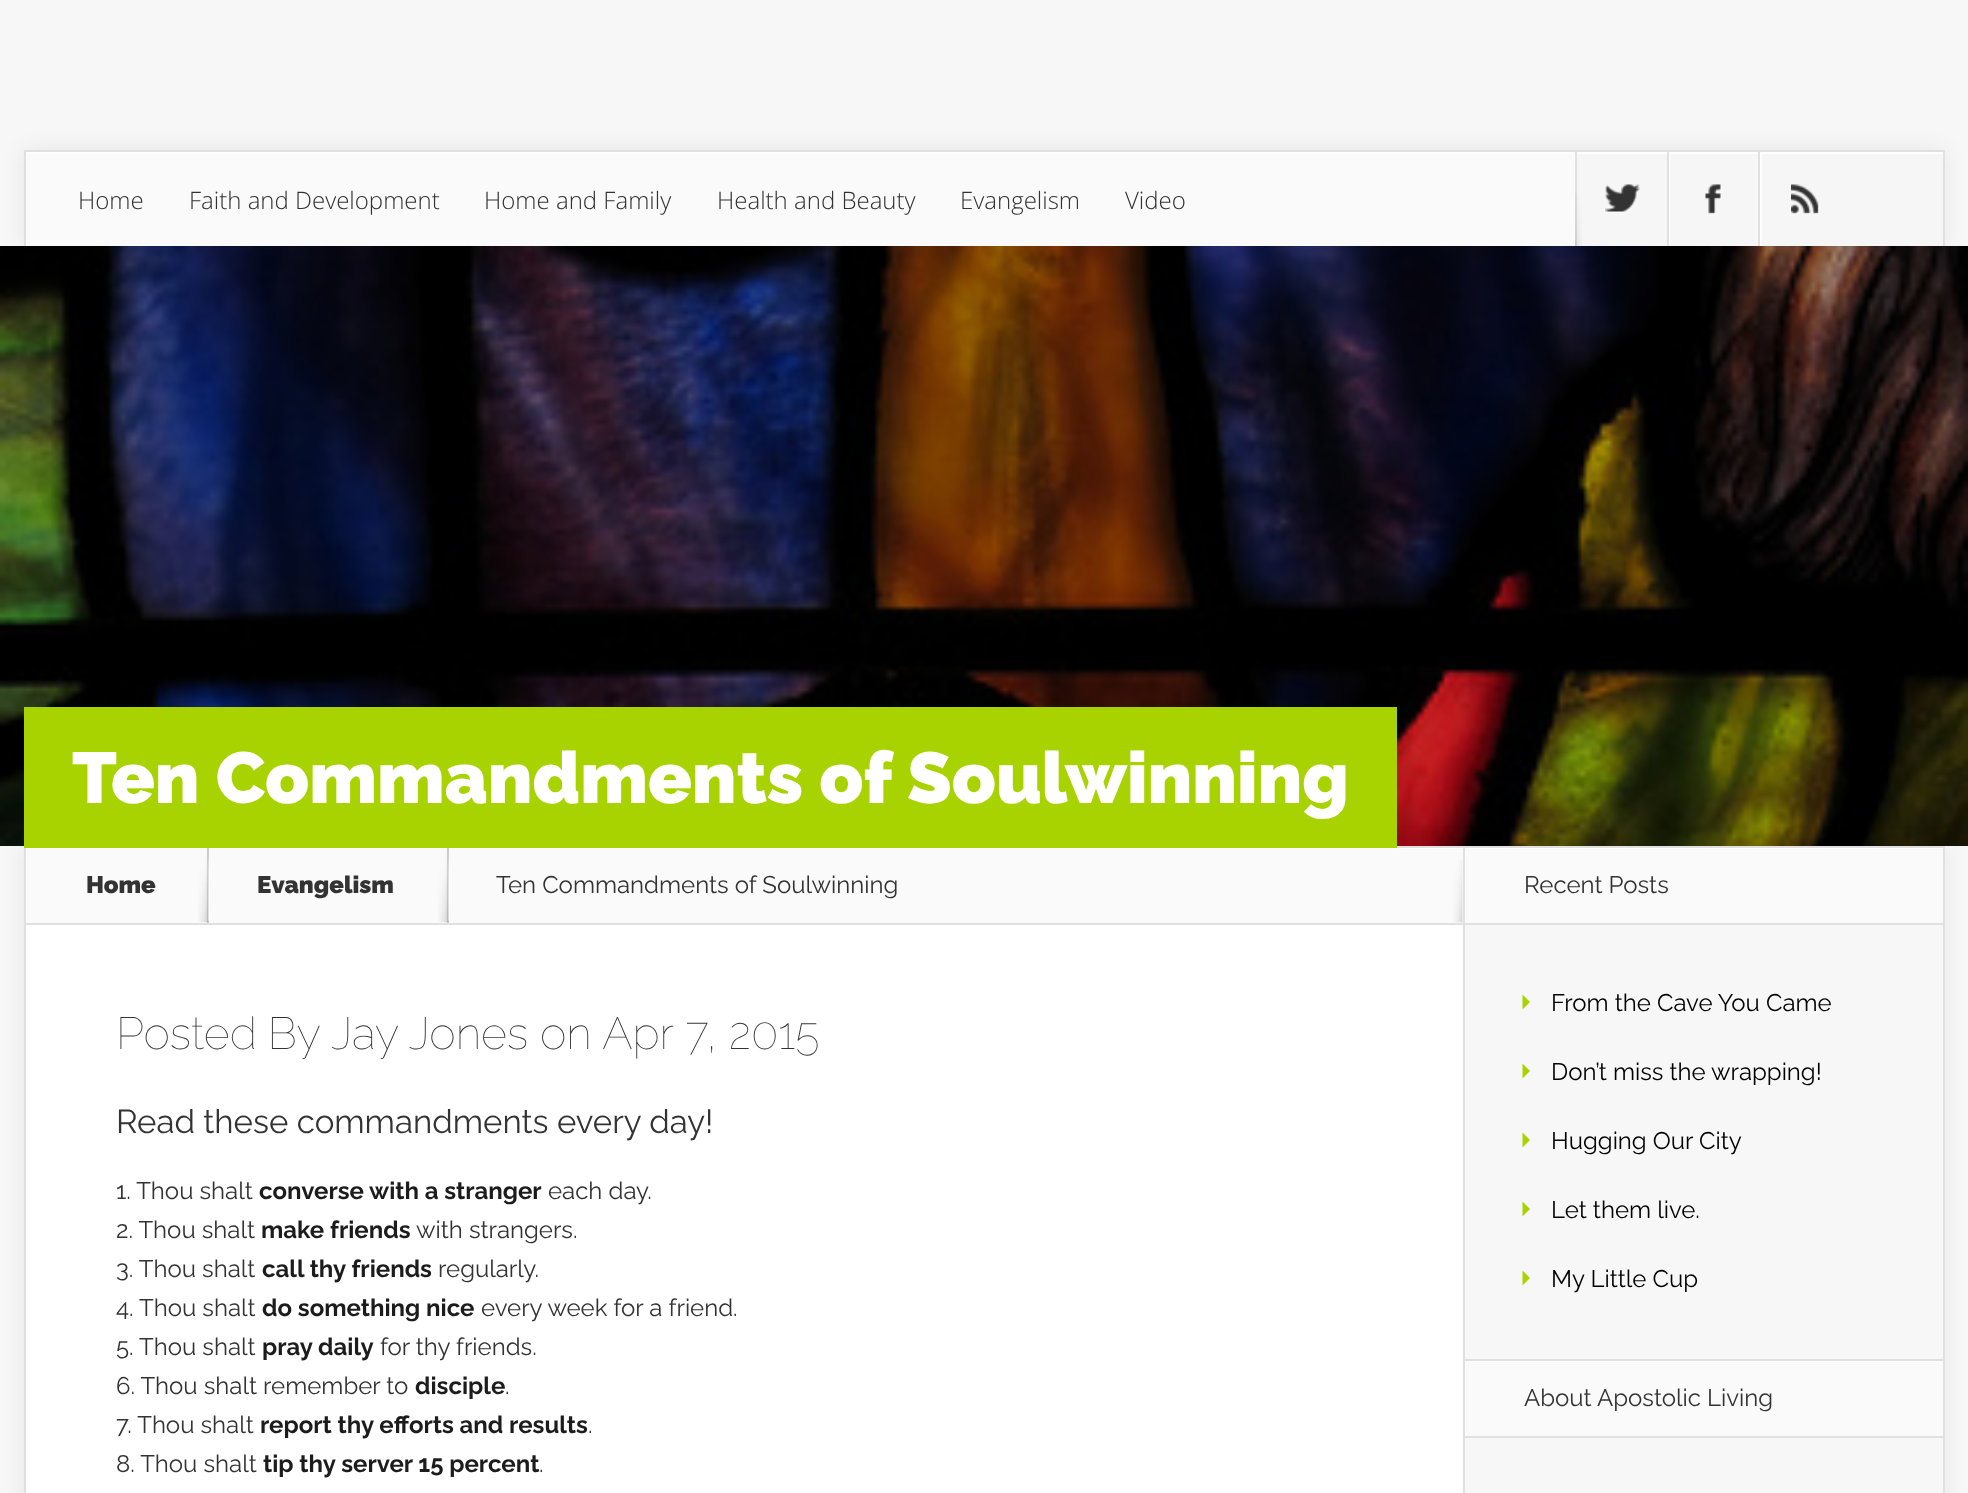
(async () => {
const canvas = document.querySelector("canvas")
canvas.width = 1968
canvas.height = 1493
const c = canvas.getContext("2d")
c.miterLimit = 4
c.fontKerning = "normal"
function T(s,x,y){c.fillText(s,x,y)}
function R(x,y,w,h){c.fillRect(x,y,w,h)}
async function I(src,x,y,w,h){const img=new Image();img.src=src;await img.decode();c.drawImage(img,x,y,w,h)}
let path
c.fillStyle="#f7f7f7"
R(0,0,1968,1493)
c.fillStyle="#00000012"
c.filter="blur(11px)"
c.beginPath()
c.rect(24,150,1920,98)
c.fill()
c.filter="none"
c.fillStyle="#fafafa"
R(26,154,1548,92)
c.fillStyle="#fff"
R(26,152,1548,2)
c.fillStyle="#e0e0e0"
R(24,150,1920,2)
R(1943,150,2,98)
R(24,150,2,98)
c.font="300 24px Open Sans"
c.fillStyle="#333"
T("Home",78,209)
T("Faith and Development",189,209)
T("Home and Family",484,209)
T("Health and Beauty",717,209)
T("Evangelism",960,209)
T("Video",1125,209)
c.fillStyle="#fff"
path = new Path2D("M1574 152v96h367h-366v-96z")
c.fill(path)
c.fillStyle="#f6f6f6"
R(1577,154,366,92)
c.fillStyle="#fff"
R(1575,152,368,2)
c.fillStyle="#e0e0e0"
R(1575,152,2,96)
await I("1.png",1605,184,35,29)
c.fillStyle="#fff"
R(1669,152,1,96)
c.fillStyle="#e0e0e0"
R(1667,152,2,96)
await I("2.png",1705,184,17,31)
c.fillStyle="#fff"
R(1760,152,2,96)
c.fillStyle="#e0e0e0"
R(1758,152,2,96)
await I("3.png",1791,184,29,31)
await I("4.png",1575,193,7,53)
await I("5.png",0,246,1968,600)
c.fillStyle="#00000012"
c.filter="blur(11px)"
c.beginPath()
c.rect(24,846,1920,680)
c.fill()
c.filter="none"
c.fillStyle="#e0e0e0"
R(24,846,2,647)
c.fillStyle="#a9d300"
R(24,707,1373,141)
c.font="900 72px Raleway"
c.fillStyle="#fff"
T("Ten Commandments of Soulwinning",72,803)
R(26,925,1437,568)
c.fillStyle="#e0e0e0"
R(1943,846,2,647)
c.fillStyle="#fafafa"
R(27,849,1436,74)
c.save()
c.beginPath()
c.rect(26,848,1437,75)
c.clip()
c.fillStyle="#fff"
path = new Path2D("M-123 699h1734v372h-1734zm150 150h1437v75h-1437z")
c.fill(path,"evenodd")
c.restore()
c.fillStyle="#e0e0e0"
R(1397,846,546,2)
R(26,923,1917,2)
c.font="900 24px Raleway"
c.fillStyle="#333"
T("Home",86,893)
c.fillStyle="#cac9c9"
R(207,848,2,75)
await I("6.png",198,851,12,72)
c.fillStyle="#333"
T("Evangelism",257,893)
c.fillStyle="#cac9c9"
R(447,848,2,75)
await I("7.png",438,852,12,71)
c.font="24px Raleway"
c.fillStyle="#333"
T("Ten Commandments of Soulwinning",496,893)
await I("8.png",1453,860,10,63)
c.wordSpacing="-1px"
c.font="100 45px Raleway"
T("Posted By",116,1049)
c.wordSpacing="0px"
T("Jay Jones on Apr 7, 2015",331,1049)
c.font="33px Raleway"
T("Read these commandments every day!",116,1133)
c.font="24px Raleway"
T("1. Thou shalt",116,1199)
c.font="bold 24px Raleway"
c.fillStyle="#1c1c1c"
T("converse with a stranger",259,1199)
c.font="24px Raleway"
c.fillStyle="#333"
T("each day.",548,1199)
T("2. Thou shalt",116,1238)
c.font="bold 24px Raleway"
c.fillStyle="#1c1c1c"
T("make friends",261,1238)
c.font="24px Raleway"
c.fillStyle="#333"
T("with strangers.",416,1238)
T("3. Thou shalt",116,1277)
c.font="bold 24px Raleway"
c.fillStyle="#1c1c1c"
T("call thy friends",262,1277)
c.font="24px Raleway"
c.fillStyle="#333"
T("regularly.",438,1277)
T("4. Thou shalt",116,1316)
c.font="bold 24px Raleway"
c.fillStyle="#1c1c1c"
T("do something nice",262,1316)
c.font="24px Raleway"
c.fillStyle="#333"
T("every week for a friend.",481,1316)
T("5. Thou shalt",116,1355)
c.font="bold 24px Raleway"
c.fillStyle="#1c1c1c"
T("pray daily",262,1355)
c.font="24px Raleway"
c.fillStyle="#333"
T("for thy friends.",380,1355)
T("6. Thou shalt remember to",116,1394)
c.font="bold 24px Raleway"
c.fillStyle="#1c1c1c"
T("disciple",415,1394)
c.font="24px Raleway"
c.fillStyle="#333"
T(".",505,1394)
T("7. Thou shalt",116,1433)
c.font="bold 24px Raleway"
c.fillStyle="#1c1c1c"
T("report thy efforts and results",260,1433)
c.font="24px Raleway"
c.fillStyle="#333"
T(".",588,1433)
T("8. Thou shalt",116,1472)
c.font="bold 24px Raleway"
c.fillStyle="#1c1c1c"
T("tip thy server 15 percent",263,1472)
c.font="24px Raleway"
c.fillStyle="#333"
T(".",539,1472)
c.fillStyle="#f7f7f7"
R(1465,925,478,568)
c.fillStyle="#fafafa"
R(1466,849,477,74)
c.save()
c.beginPath()
c.rect(1464,848,479,75)
c.clip()
c.fillStyle="#fff"
path = new Path2D("M1316 699h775v372h-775zm150 150h478v75h-478z")
c.fill(path,"evenodd")
c.restore()
c.fillStyle="#e0e0e0"
R(1463,846,2,78)
c.fillStyle="#333"
T("Recent Posts",1524,893)
c.fillStyle="#a9d300"
path = new Path2D("M1522.5 1009.5v-15l7.5 7.5z")
c.fill(path)
c.fillStyle="#000"
T("From the Cave You Came",1551,1011)
c.fillStyle="#a9d300"
path = new Path2D("M1522.5 1078.5v-15l7.5 7.5z")
c.fill(path)
c.fillStyle="#000"
T("Don’t miss the wrapping!",1551,1080)
c.fillStyle="#a9d300"
path = new Path2D("M1522.5 1147.5v-15l7.5 7.5z")
c.fill(path)
c.fillStyle="#000"
T("Hugging Our City",1551,1149)
c.fillStyle="#a9d300"
path = new Path2D("M1522.5 1216.5v-15l7.5 7.5z")
c.fill(path)
c.fillStyle="#000"
T("Let them live.",1551,1218)
c.fillStyle="#a9d300"
path = new Path2D("M1522.5 1285.5v-15l7.5 7.5z")
c.fill(path)
c.fillStyle="#000"
T("My Little Cup",1551,1287)
c.fillStyle="#fafafa"
R(1466,1362,477,74)
c.fillStyle="#e0e0e0"
R(1463,925,2,568)
c.save()
c.beginPath()
c.rect(1464,1361,479,75)
c.clip()
c.fillStyle="#fff"
path = new Path2D("M1316 1212h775v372h-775zm150 150h478v75h-478z")
c.fill(path,"evenodd")
c.restore()
R(1463,1359,480,2)
R(1463,1436,480,2)
R(1464,1359,1,78)
c.fillStyle="#333"
T("About Apostolic Living",1524,1406)
})()
